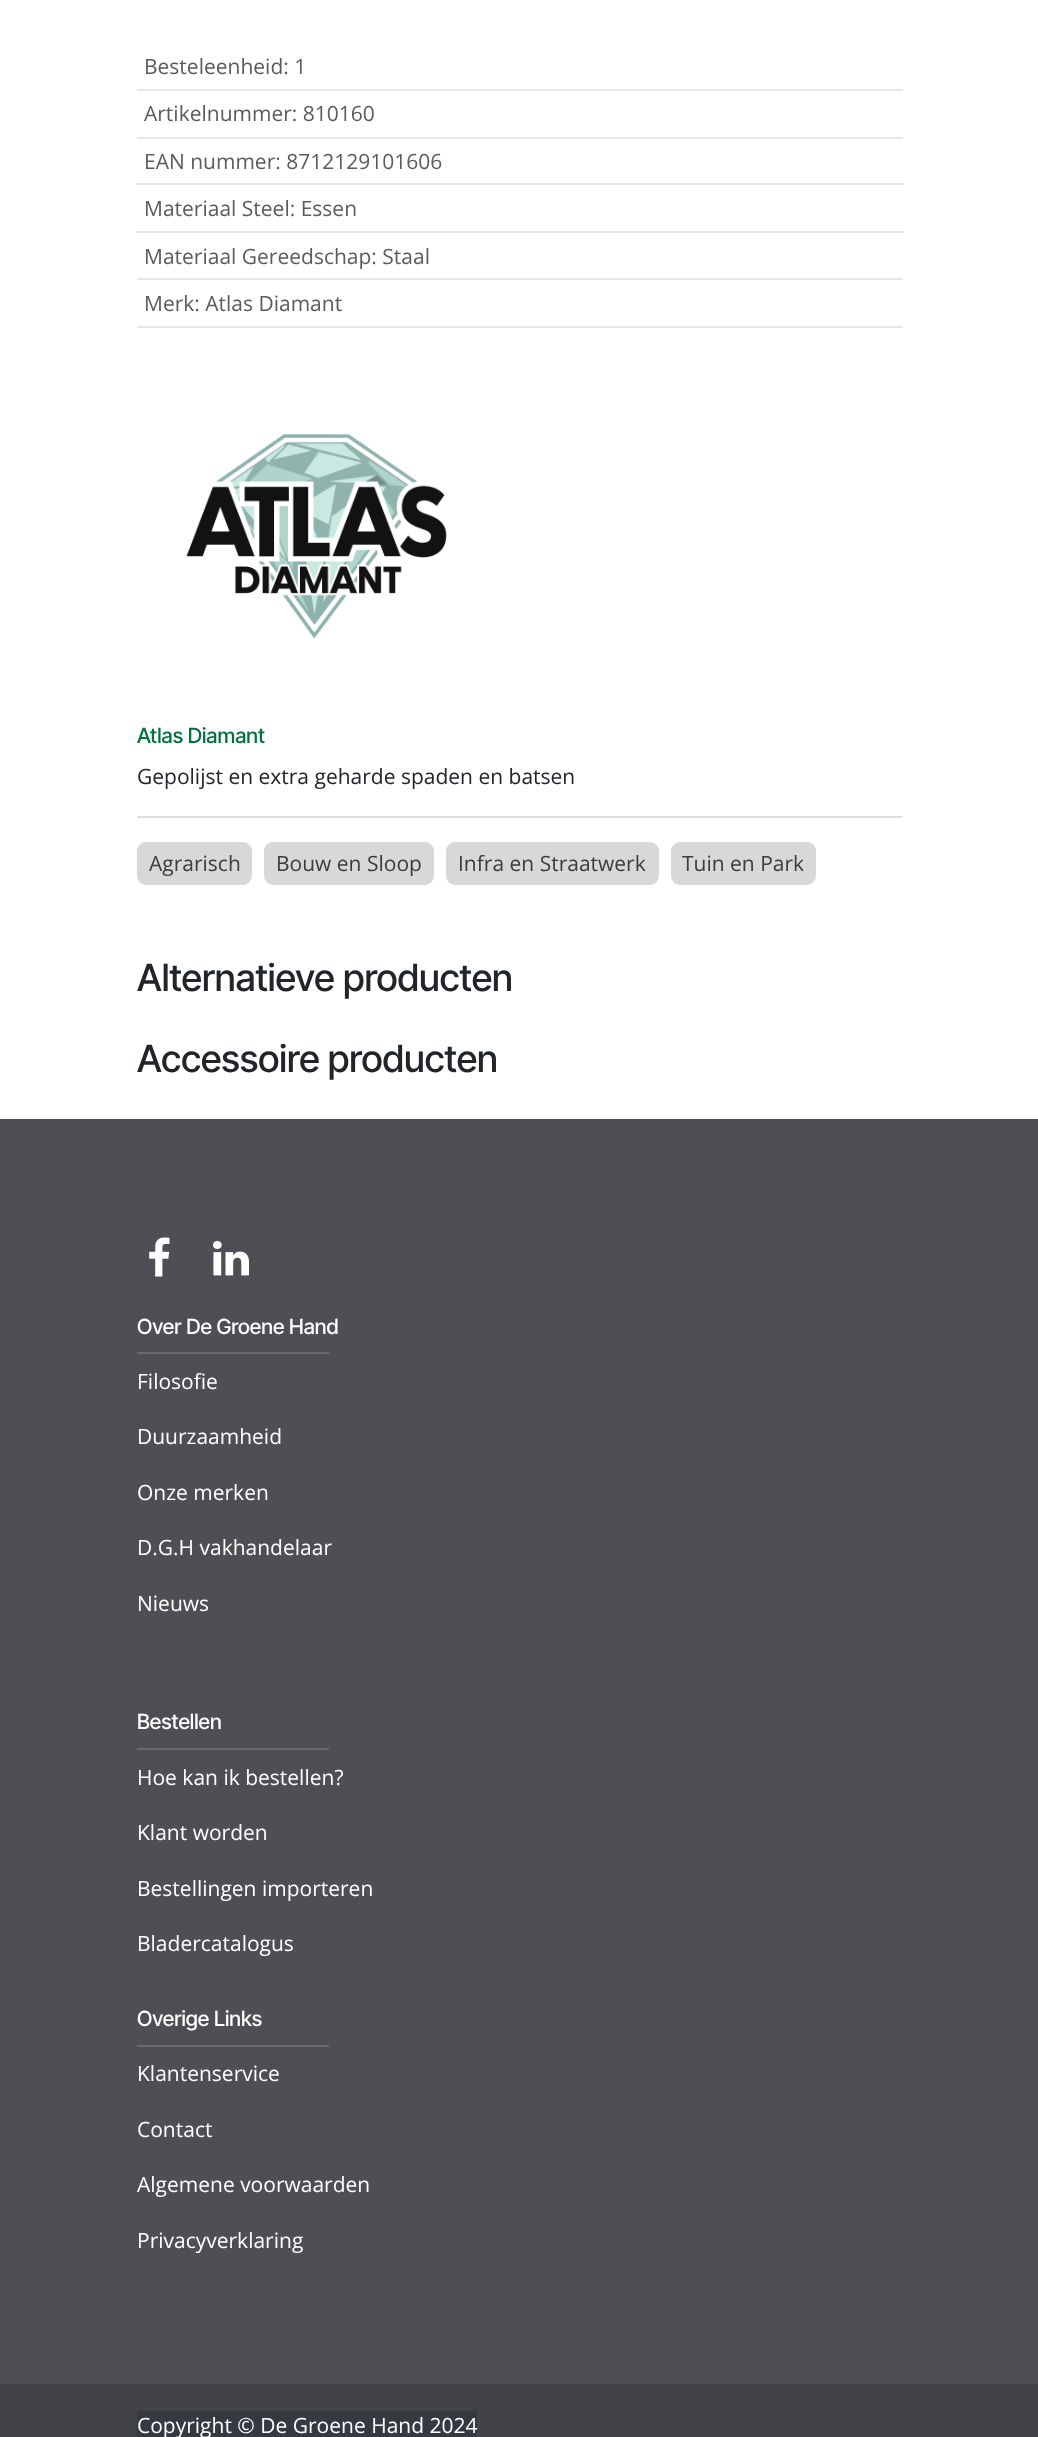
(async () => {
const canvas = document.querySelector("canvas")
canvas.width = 1038
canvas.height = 2437
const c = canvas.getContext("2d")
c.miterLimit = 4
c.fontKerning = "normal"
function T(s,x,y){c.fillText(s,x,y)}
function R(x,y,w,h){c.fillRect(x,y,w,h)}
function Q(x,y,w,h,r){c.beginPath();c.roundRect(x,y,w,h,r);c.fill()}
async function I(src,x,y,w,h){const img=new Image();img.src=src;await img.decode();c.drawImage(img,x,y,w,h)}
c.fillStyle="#fff"
R(0,0,1038,2437)
c.fillStyle="#e6e7e7"
R(137,89,766,2)
c.font="21px Open Sans"
c.fillStyle="#595c5f"
T("Besteleenheid: 1",144,74)
c.fillStyle="#e6e7e7"
R(137,137,766,2)
c.fillStyle="#595c5f"
T("Artikelnummer: 810160",144,121)
c.fillStyle="#e6e7e7"
R(137,183,766,2)
c.fillStyle="#595c5f"
T("EAN nummer: 8712129101606",144,169)
c.fillStyle="#e6e7e7"
R(137,231,766,2)
c.fillStyle="#595c5f"
T("Materiaal Steel: Essen",144,216)
c.fillStyle="#e6e7e7"
R(137,278,766,2)
c.fillStyle="#595c5f"
T("Materiaal Gereedschap: Staal",144,264)
c.fillStyle="#e6e7e7"
R(137,326,766,2)
c.fillStyle="#595c5f"
T("Merk: Atlas Diamant",144,311)
await I("1.png",186,434,261,205)
c.font="500 21px Inter Tight"
c.fillStyle="#00723e"
T("Atlas Diamant",137,743)
c.font="21px Open Sans"
c.fillStyle="#212529"
T("Gepolijst en extra geharde spaden en batsen",137,784)
c.fillStyle="#dededf"
R(137,816,765,2)
c.fillStyle="#3c3c3c"
T("Agrarisch",149,871)
c.fillStyle="#3c3c3c33"
Q(137,842,115,43,9)
c.fillStyle="#3c3c3c"
T("Bouw en Sloop",276,871)
c.fillStyle="#3c3c3c33"
Q(264,842,170,43,9)
c.fillStyle="#3c3c3c"
T("Infra en Straatwerk",458,871)
c.fillStyle="#3c3c3c33"
Q(446,842,213,43,9)
c.fillStyle="#3c3c3c"
T("Tuin en Park",682,871)
c.fillStyle="#3c3c3c33"
Q(671,842,145,43,9)
c.font="500 37.5px Inter Tight"
c.fillStyle="#212529"
T("Alternatieve producten",137,991)
T("Accessoire producten",137,1072)
c.fillStyle="#4e4f54"
R(0,1119,1038,1265)
await I("2.png",149,1237,21,40)
await I("3.png",213,1241,36,35)
c.font="500 21px Inter Tight"
c.fillStyle="#fff"
T("Over De Groene Hand",137,1334)
c.fillStyle="#69696e"
R(137,1352,192,2)
c.font="21px Open Sans"
c.fillStyle="#fff"
T("Filosofie",137,1389)
T("Duurzaamheid",137,1444)
T("Onze merken",137,1500)
T("D.G.H vakhandelaar",137,1555)
T("Nieuws",137,1611)
c.font="500 21px Inter Tight"
T("Bestellen",137,1729)
c.fillStyle="#69696e"
R(137,1748,192,2)
c.font="21px Open Sans"
c.fillStyle="#fff"
T("Hoe kan ik bestellen?",137,1785)
T("Klant worden",137,1840)
T("Bestellingen importeren",137,1896)
T("Bladercatalogus",137,1951)
c.font="500 21px Inter Tight"
T("Overige Links",137,2026)
c.fillStyle="#69696e"
R(137,2045,192,2)
c.font="21px Open Sans"
c.fillStyle="#fff"
T("Klantenservice",137,2081)
T("Contact",137,2137)
T("Algemene voorwaarden",137,2192)
T("Privacyverklaring",137,2248)
c.fillStyle="#424347"
R(0,2384,1038,53)
c.fillStyle="#343a40"
R(137,2411,340,26)
c.fillStyle="#fff"
T("Copyright © De Groene Hand 2024",137,2433)
})()
